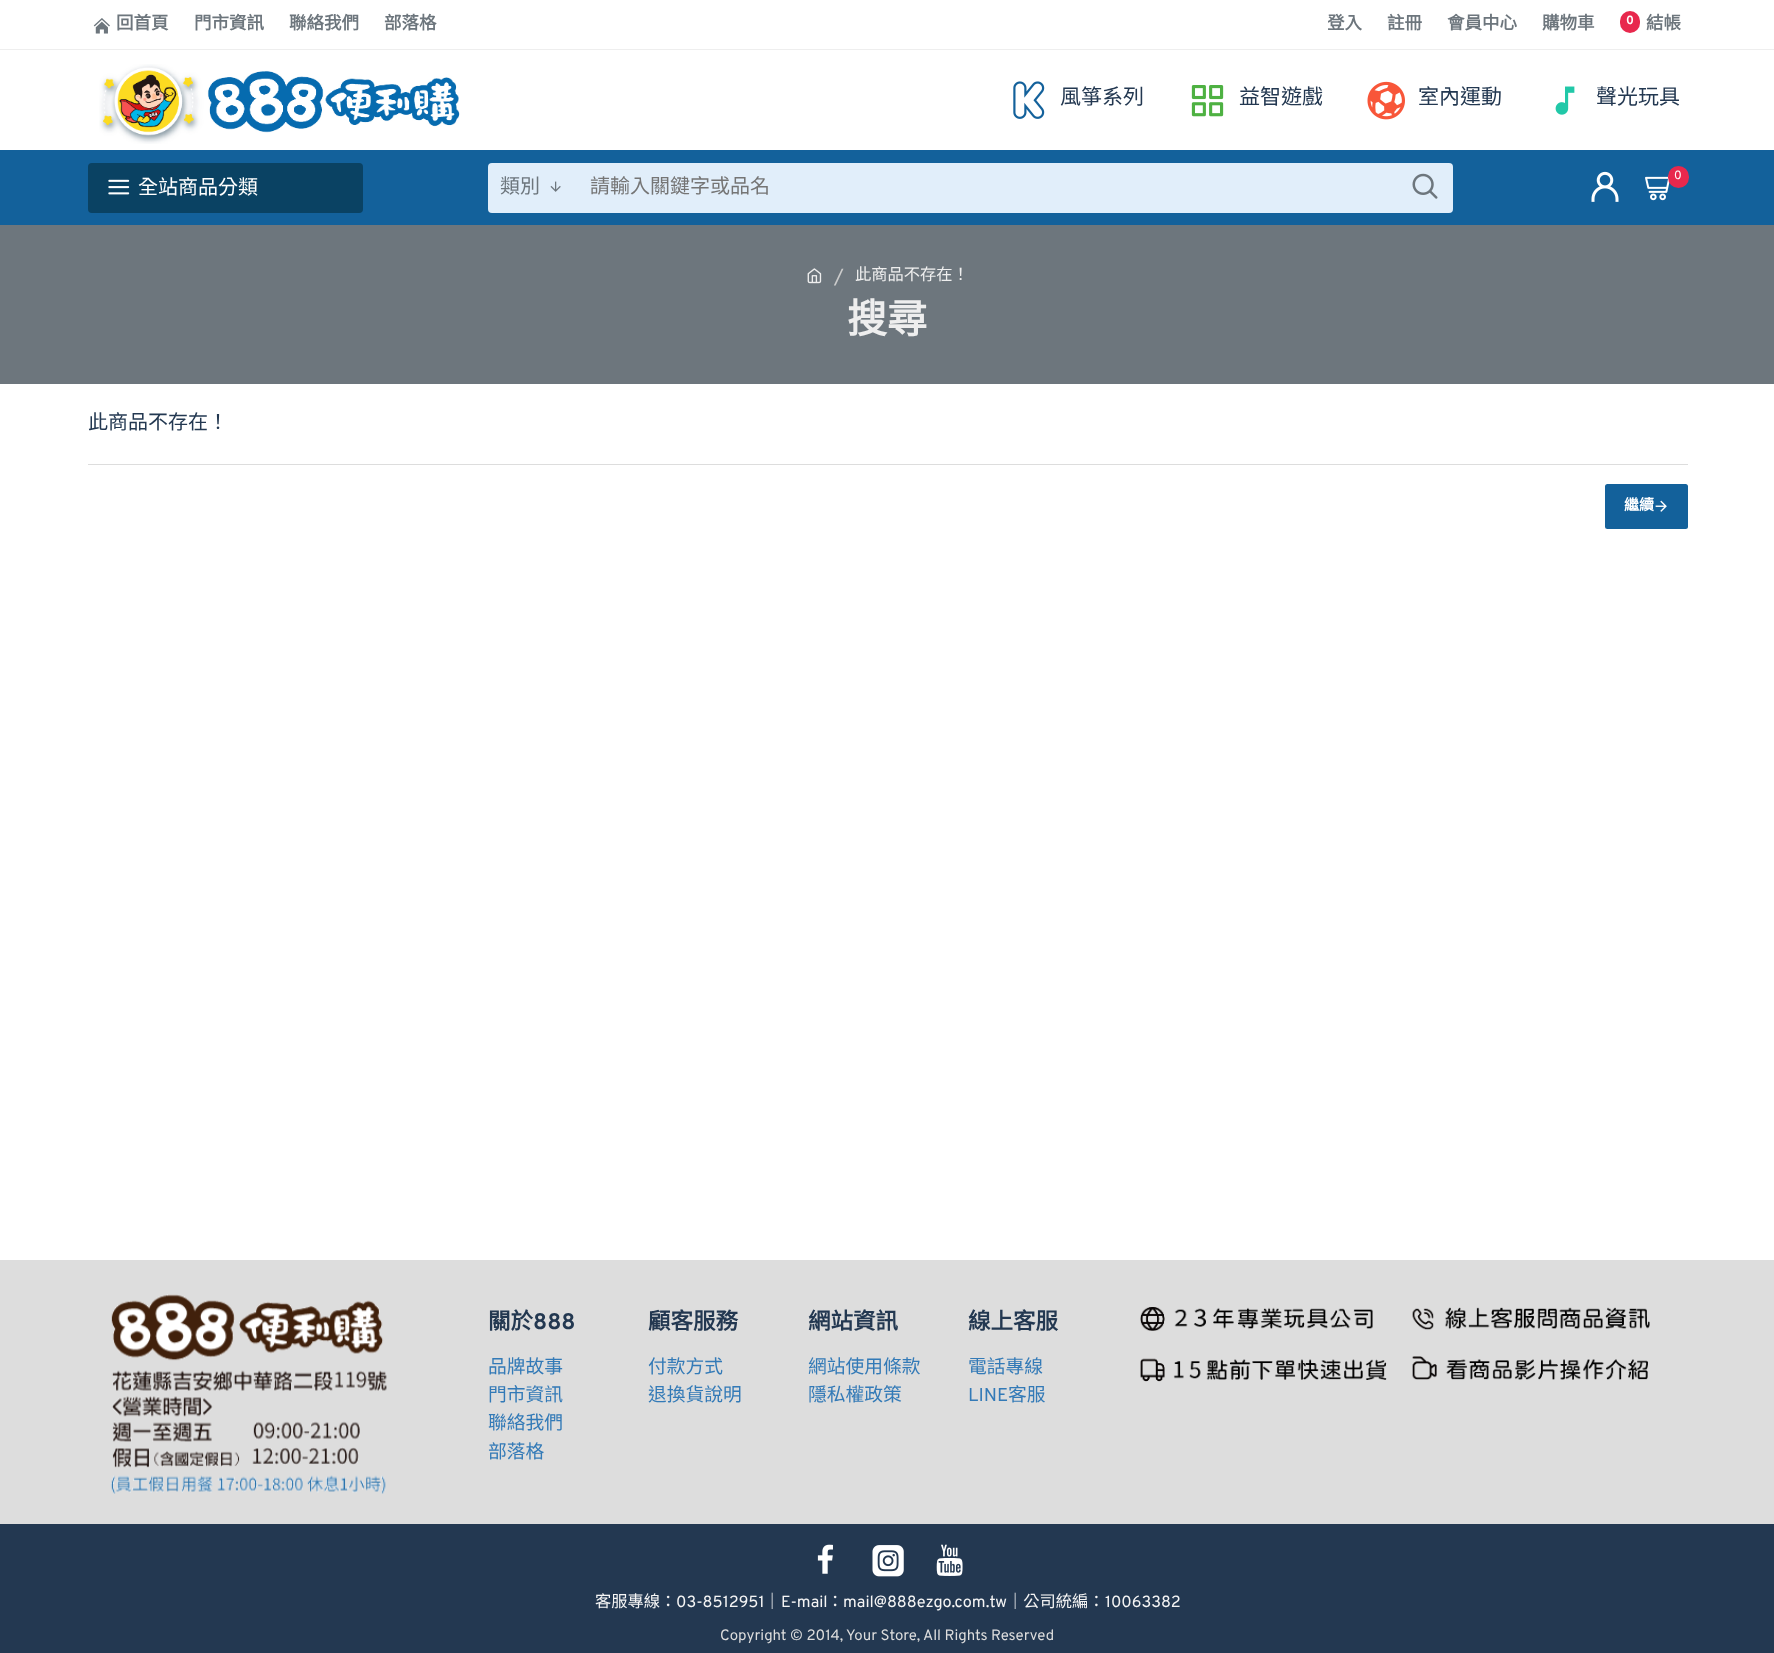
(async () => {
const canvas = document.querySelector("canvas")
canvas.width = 1774
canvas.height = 1653
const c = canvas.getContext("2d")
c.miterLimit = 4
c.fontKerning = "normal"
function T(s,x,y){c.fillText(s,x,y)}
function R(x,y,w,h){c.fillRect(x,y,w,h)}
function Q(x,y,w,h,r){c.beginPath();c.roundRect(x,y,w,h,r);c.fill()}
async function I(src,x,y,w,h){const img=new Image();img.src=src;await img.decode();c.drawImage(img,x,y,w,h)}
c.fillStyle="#fff"
R(0,0,1774,1653)
await I("1.png",93,18,17,16)
c.font="bold 17.5px Noto Sans CJK TC"
c.fillStyle="#6d767d"
T("回首頁",116,29)
T("門市資訊",194,29)
T("聯絡我們",289,29)
T("部落格",384,29)
c.save()
c.beginPath()
c.rect(1328,13,35,26)
c.clip()
T("登入",1327,29)
c.restore()
T("註冊",1387,29)
T("會員中心",1447,29)
T("購物車",1542,29)
c.fillStyle="#e8284d"
Q(1620,11,20,22,10)
c.font="bold 12px Overpass"
c.fillStyle="#fff"
T("0",1626,24)
c.font="bold 17.5px Noto Sans CJK TC"
c.fillStyle="#6d767d"
T("結帳",1646,29)
await I("2.png",99,64,361,80)
await I("3.png",1013,81,32,38)
c.font="21px Noto Sans CJK TC"
c.fillStyle="#233851"
T("風箏系列",1060,104)
await I("4.png",1191,85,33,32)
T("益智遊戲",1239,104)
await I("5.png",1367,81,38,39)
T("室內運動",1418,104)
await I("6.png",1555,86,20,29)
T("聲光玩具",1596,104)
c.fillStyle="#13619b"
R(0,150,1774,75)
await I("7.png",1591,171,28,31)
await I("8.png",1645,174,25,27)
c.fillStyle="#e8284d"
Q(1668,166,21,22,10.5)
c.font="12px Overpass"
c.fillStyle="#fff"
T("0",1674,179)
c.fillStyle="#0a4263"
Q(88,163,275,50,4)
await I("9.png",108,179,22,16)
c.font="20px Noto Sans CJK TC"
c.fillStyle="#fff"
T("全站商品分類",138,194)
c.fillStyle="#e1eefa"
c.beginPath()
c.roundRect(488,163,87,50,[4,0,0,4])
c.fill()
c.fillStyle="#6d767d"
T("類別",500,193)
await I("10.png",550,181,11,11)
c.fillStyle="#e1eefa"
R(575,163,821,50)
c.fillStyle="#757575"
T("請輸入關鍵字或品名",590,193)
c.fillStyle="#e1eefa"
c.beginPath()
c.roundRect(1396,163,57,50,[0,4,4,0])
c.fill()
await I("11.png",1412,173,26,26)
c.fillStyle="#eee"
R(0,49,1774,1)
c.fillStyle="#6d767d"
R(0,225,1774,159)
await I("12.png",807,268,15,16)
c.font="20px Overpass"
c.fillStyle="#ccc"
T("/",834,283)
c.font="16.25px Noto Sans CJK TC"
c.fillStyle="#eee"
T("此商品不存在！",855,280)
c.font="bold 40px Noto Sans CJK TC"
T("搜尋",847,333)
c.font="20px Noto Sans CJK TC"
c.fillStyle="#233851"
T("此商品不存在！",88,429)
c.fillStyle="#ddd"
R(88,464,1600,1)
c.fillStyle="#13619b"
Q(1605,484,83,45,2.5)
c.font="bold 15px Noto Sans CJK TC"
c.fillStyle="#fff"
T("繼續",1624,510)
await I("13.png",1655,500,12,12)
c.fillStyle="#ddd"
R(0,1260,1774,264)
await I("14.png",110,1294,277,200)
c.font="bold 22.5px Noto Sans CJK TC"
c.fillStyle="#233851"
T("關於",488,1329)
c.font="bold 22.5px Overpass"
T("888",533,1329)
c.font="18.75px Noto Sans CJK TC"
c.fillStyle="#337ab7"
T("品牌故事",488,1373)
T("門市資訊",488,1401)
T("聯絡我們",488,1429)
T("部落格",488,1458)
c.font="bold 22.5px Noto Sans CJK TC"
c.fillStyle="#233851"
T("顧客服務",648,1329)
c.font="18.75px Noto Sans CJK TC"
c.fillStyle="#337ab7"
T("付款方式",648,1373)
T("退換貨說明",648,1401)
c.font="bold 22.5px Noto Sans CJK TC"
c.fillStyle="#233851"
T("網站資訊",808,1329)
c.font="18.75px Noto Sans CJK TC"
c.fillStyle="#337ab7"
T("網站使用條款",808,1373)
T("隱私權政策",808,1401)
c.font="bold 22.5px Noto Sans CJK TC"
c.fillStyle="#233851"
T("線上客服",968,1329)
c.font="18.75px Noto Sans CJK TC"
c.fillStyle="#337ab7"
T("電話專線",968,1373)
c.font="18.75px Overpass"
T("LINE",968,1401)
c.font="18.75px Noto Sans CJK TC"
T("客服",1008,1401)
await I("15.png",1140,1307,510,75)
c.fillStyle="#233851"
R(0,1524,1774,129)
await I("16.png",817,1544,16,30)
await I("17.png",872,1545,32,32)
await I("18.png",936,1544,27,32)
c.font="16.25px Noto Sans CJK TC"
c.fillStyle="#f5f5f5"
T("客服專線：",595,1607)
c.font="16.25px Overpass"
T("03-8512951",676,1607)
c.font="16.25px Noto Sans CJK TC"
T("｜",764,1607)
c.font="16.25px Overpass"
T("E-mail",781,1607)
c.font="16.25px Noto Sans CJK TC"
T("：",827,1607)
c.font="16.25px Overpass"
T("mail@888ezgo.com.tw",843,1607)
c.font="16.25px Noto Sans CJK TC"
T("｜公司統編：",1007,1607)
c.font="16.25px Overpass"
T("10063382",1105,1607)
c.font="15px Overpass"
c.fillStyle="#ddd"
T("Copyright © 2014, Your Store, All Rights Reserved",720,1640)
})()
